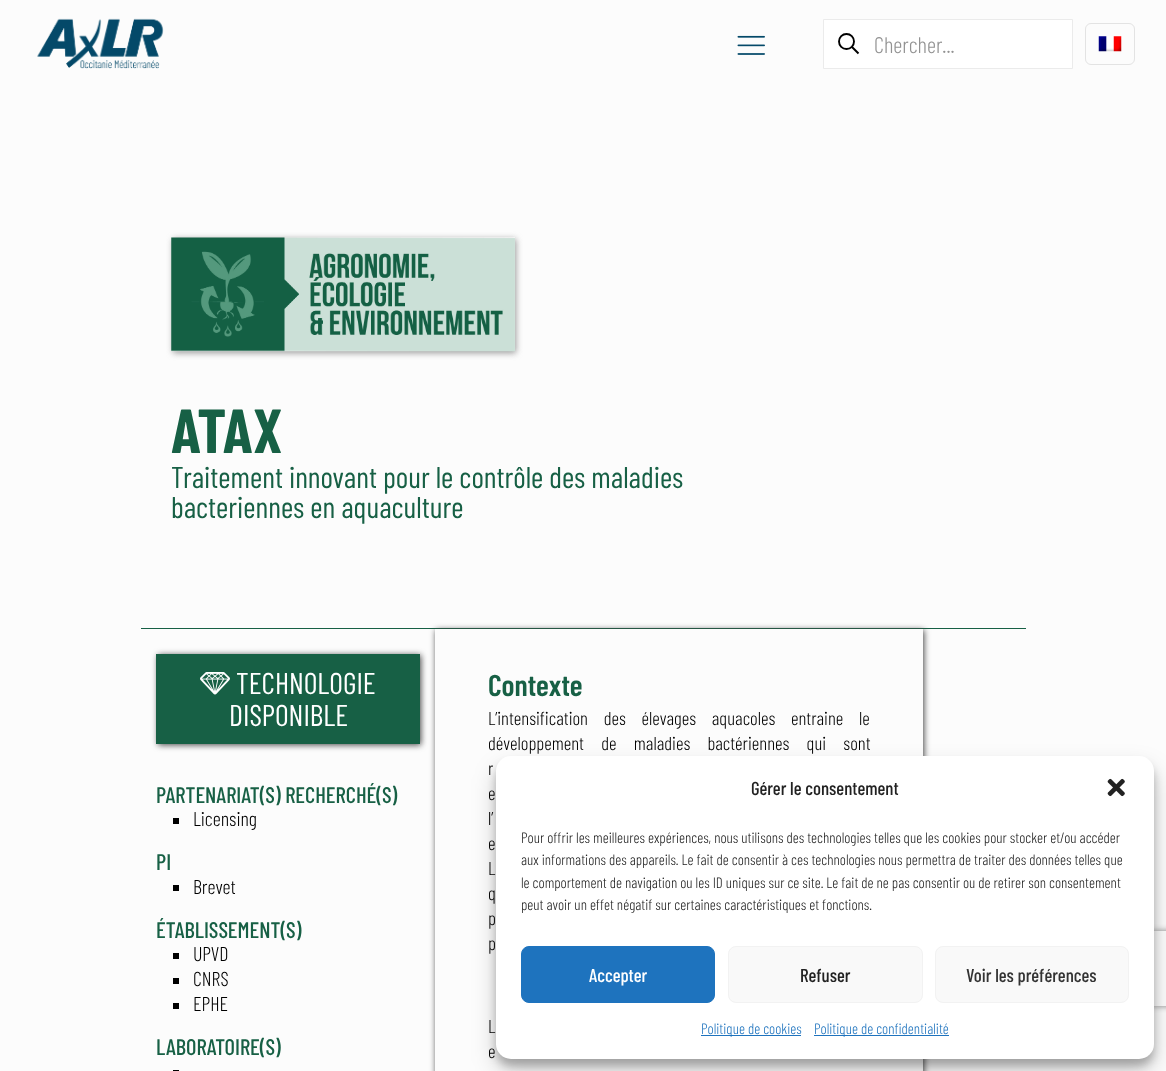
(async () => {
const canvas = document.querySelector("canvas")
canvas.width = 1166
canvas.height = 1071
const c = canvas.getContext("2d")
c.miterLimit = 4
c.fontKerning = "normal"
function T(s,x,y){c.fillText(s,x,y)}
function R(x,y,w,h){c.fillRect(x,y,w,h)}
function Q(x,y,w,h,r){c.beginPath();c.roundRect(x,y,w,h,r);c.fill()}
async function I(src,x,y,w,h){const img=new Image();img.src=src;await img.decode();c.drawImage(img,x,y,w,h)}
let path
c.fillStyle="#fcfcfc"
R(0,0,1166,1071)
await I("1.png",37,18,127,51)
await I("2.png",737,35,28,20)
c.fillStyle="#fff"
c.beginPath()
c.rect(823.5,19.5,249,49)
c.fill()
c.strokeStyle="#ebebeb"
c.stroke()
c.beginPath()
c.arc(846.5,41.5,7.5,0,7)
c.strokeStyle="#000"
c.lineWidth=1.9
c.stroke()
path = new Path2D("M852 47l6.5 6.5")
c.stroke(path)
c.font="300 22.5px Barlow Condensed"
c.fillStyle="#929292"
T("Chercher...",874,53)
c.beginPath()
c.roundRect(1085.5,23.5,49,41,5.5)
c.strokeStyle="#e3e3e3"
c.lineWidth=1
c.stroke()
await I("3.png",1098,36,24,16)
c.fillStyle="#176045"
R(141,628,885,1)
c.fillStyle="#999"
c.filter="blur(3px)"
c.beginPath()
c.rect(173,239,343,114)
c.fill()
c.filter="none"
await I("4.png",171,237,344,115)
c.font="bold 62px Barlow Condensed"
c.fillStyle="#176045"
T("ATAX",171,453)
c.font="30px Barlow Condensed"
T("Traitement innovant pour le contrôle des maladies",171,488)
T("bacteriennes en aquaculture",171,518)
c.fillStyle="#444"
c.filter="blur(3px)"
c.beginPath()
c.rect(158,655,263,90)
c.fill()
c.filter="none"
c.fillStyle="#176045"
R(156,654,264,90)
await I("5.png",200,672,30,23)
c.fillStyle="#fff"
T("TECHNOLOGIE",236,694)
T("DISPONIBLE",229,726)
c.font="500 22.5px Barlow Condensed"
c.fillStyle="#176045"
T("PARTENARIAT(S) RECHERCHÉ(S)",156,803)
c.fillStyle="#000"
R(173,818,6,6)
c.font="300 20px Barlow Condensed"
T("Licensing",193,826)
c.font="500 22.5px Barlow Condensed"
c.fillStyle="#176045"
T("PI",156,870)
c.fillStyle="#000"
R(173,885,6,6)
c.font="300 20px Barlow Condensed"
T("Brevet",193,894)
c.font="500 22.5px Barlow Condensed"
c.fillStyle="#176045"
T("ÉTABLISSEMENT(S)",156,938)
c.fillStyle="#000"
R(173,953,6,6)
c.font="300 20px Barlow Condensed"
T("UPVD",193,961)
R(173,978,6,6)
T("CNRS",193,986)
R(173,1003,6,6)
T("EPHE",193,1011)
c.font="500 22.5px Barlow Condensed"
c.fillStyle="#176045"
T("LABORATOIRE(S)",156,1055)
c.fillStyle="#000"
R(173,1070,6,1)
c.save()
path = new Path2D("M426 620h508v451h-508zm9 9h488v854h-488z")
c.clip(path,"evenodd")
c.fillStyle="#444"
c.filter="blur(3px)"
c.beginPath()
c.rect(436,630,488,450)
c.fill()
c.filter="none"
c.restore()
c.font="600 30px Barlow Condensed"
c.fillStyle="#176045"
T("Contexte",488,696)
c.wordSpacing="12px"
c.font="300 18.75px Barlow Condensed"
c.fillStyle="#000"
T("L’intensification des élevages aquacoles entraine le",488,725)
c.wordSpacing="13.5px"
T("développement de maladies bactériennes qui sont",488,750)
c.wordSpacing="1px"
T("r",488,775)
c.wordSpacing="10px"
T("e",488,800)
T("l’",488,825)
c.wordSpacing="3px"
T("e",488,850)
c.wordSpacing="5px"
T("L",488,875)
c.wordSpacing="2px"
T("q",488,900)
c.wordSpacing="3px"
T("p",488,925)
c.wordSpacing="0px"
T("p",488,950)
c.wordSpacing="9px"
T("L",488,1033)
c.wordSpacing="1px"
T("e",488,1058)
c.fillStyle="#0000003b"
c.filter="blur(4px)"
c.beginPath()
c.roundRect(496,764,658,302,15)
c.fill()
c.filter="none"
c.fillStyle="#00000030"
c.filter="blur(12.5px)"
c.beginPath()
c.roundRect(496,769,658,302,15)
c.fill()
c.filter="none"
c.save()
path = new Path2D("M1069 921h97v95h-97zm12.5 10h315c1.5 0 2.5 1 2.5 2.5v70c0 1.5-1 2.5-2.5 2.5h-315c-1.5 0-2.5-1-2.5-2.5v-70c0-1.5 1-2.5 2.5-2.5z")
c.clip(path,"evenodd")
c.fillStyle="#808080"
c.filter="blur(3px)"
c.beginPath()
c.roundRect(1079,931,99,75,2.5)
c.fill()
c.filter="none"
c.restore()
c.fillStyle="#fff"
Q(496,756,658,303,15)
c.wordSpacing="0px"
c.font="500 18.75px Barlow Condensed"
c.fillStyle="#222"
T("Gérer le consentement",751,795)
await I("6.png",1107,778,18,19)
c.font="300 15px Barlow Condensed"
T("Pour offrir les meilleures expériences, nous utilisons des technologies telles que les cookies pour stocker et/ou accéder",521,843)
T("aux informations des appareils. Le fait de consentir à ces technologies nous permettra de traiter des données telles que",521,865)
T("le comportement de navigation ou les ID uniques sur ce site. Le fait de ne pas consentir ou de retirer son consentement",521,888)
T("peut avoir un effet négatif sur certaines caractéristiques et fonctions.",521,910)
c.fillStyle="#1e73be"
c.beginPath()
c.roundRect(521.5,946.5,193,56,7.5)
c.fill()
c.strokeStyle="#1e73be"
c.stroke()
c.font="500 18.75px Barlow Condensed"
c.fillStyle="#fff"
T("Accepter",589,982)
c.fillStyle="#f9f9f9"
c.beginPath()
c.roundRect(728.5,946.5,194,56,7.5)
c.fill()
c.strokeStyle="#f2f2f2"
c.stroke()
c.fillStyle="#222"
T("Refuser",800,982)
c.fillStyle="#f9f9f9"
c.beginPath()
c.roundRect(935.5,946.5,193,56,7.5)
c.fill()
c.stroke()
c.fillStyle="#333"
T("Voir les préférences",966,982)
c.fillStyle="#1e73be"
R(701,1035,100,1)
c.font="300 15px Barlow Condensed"
T("Politique de cookies",701,1034)
R(814,1035,135,1)
T("Politique de confidentialité",814,1034)
})()
